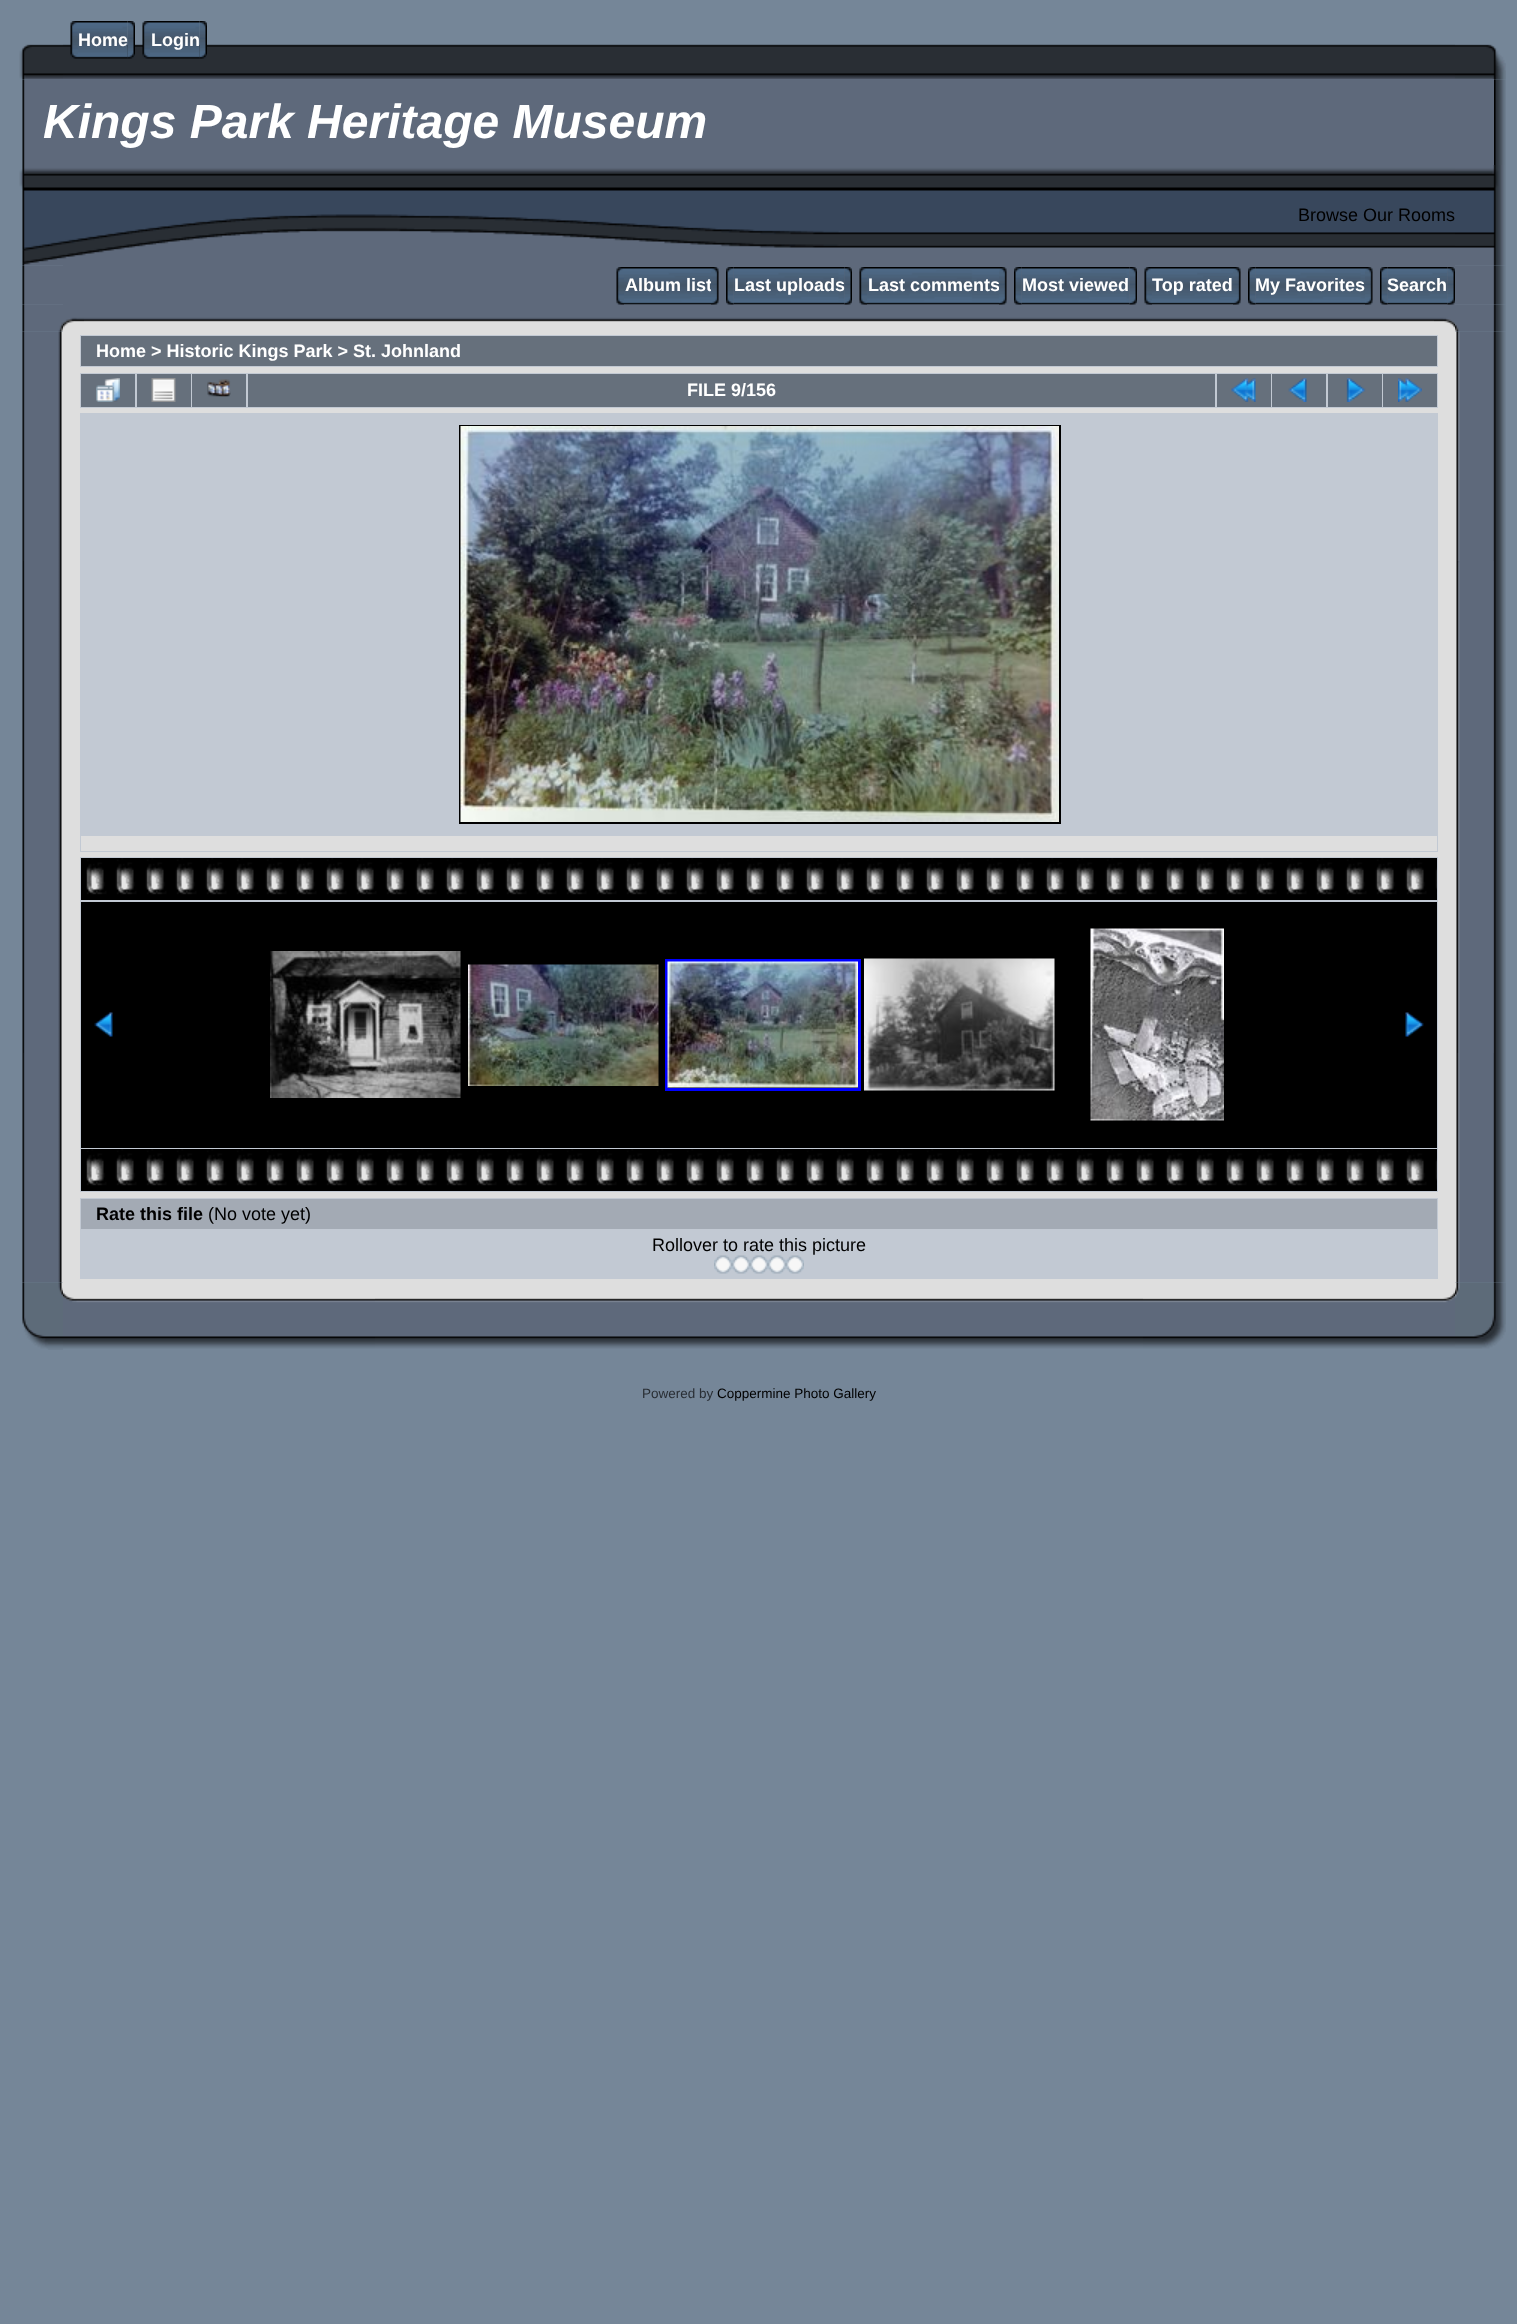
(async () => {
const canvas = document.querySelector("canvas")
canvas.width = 1517
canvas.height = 2324
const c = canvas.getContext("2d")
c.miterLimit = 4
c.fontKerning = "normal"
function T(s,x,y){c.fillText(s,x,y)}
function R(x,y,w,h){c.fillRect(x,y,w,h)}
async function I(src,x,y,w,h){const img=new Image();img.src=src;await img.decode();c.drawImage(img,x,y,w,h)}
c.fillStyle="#758698"
R(0,0,1517,2324)
await I("1.png",63,44,1392,35)
await I("2.png",70,21,8,38)
await I("3.png",78,21,50,38)
c.font="bold 18px Liberation Sans"
c.fillStyle="#fff"
T("Home",78,46)
await I("4.png",127,21,8,38)
await I("2.png",142,21,8,38)
await I("5.png",150,21,50,38)
T("Login",151,46)
await I("6.png",199,21,8,38)
await I("7.png",19,44,44,36)
await I("8.png",1455,44,51,36)
await I("9.png",22,79,5,86)
c.fillStyle="#5e697b"
R(27,79,1467,86)
c.font="italic bold 48px Liberation Sans"
c.fillStyle="#fff"
T("Kings Park Heritage Museum",43,138)
await I("10.png",1494,79,12,86)
await I("11.png",19,165,821,101)
await I("12.png",840,165,615,100)
c.font="18px Liberation Sans"
c.fillStyle="#000"
T("Browse Our Rooms",1298,221)
await I("13.png",1455,165,51,101)
await I("14.png",22,265,41,40)
c.fillStyle="#5e697b"
R(63,265,1392,40)
await I("16.png",624,267,87,38)
await I("19.png",733,267,112,38)
await I("22.png",867,267,132,38)
await I("25.png",1021,267,109,38)
await I("27.png",1152,267,81,38)
await I("28.png",1255,267,110,38)
await I("30.png",1387,267,61,38)
await I("35.png",84,304,1350,27)
await I("15.png",616,267,8,38)
c.font="bold 18px Liberation Sans"
c.fillStyle="#fff"
T("Album list",625,291)
await I("17.png",711,267,8,38)
await I("18.png",726,267,8,38)
T("Last uploads",734,291)
await I("20.png",844,267,8,38)
await I("21.png",859,267,8,38)
T("Last comments",868,291)
await I("23.png",999,267,8,38)
await I("24.png",1014,267,8,38)
T("Most viewed",1022,291)
await I("26.png",1129,267,8,38)
await I("15.png",1144,267,8,38)
T("Top rated",1152,291)
await I("17.png",1233,267,8,38)
await I("18.png",1248,267,8,38)
T("My Favorites",1255,291)
await I("17.png",1365,267,8,38)
await I("29.png",1380,267,8,38)
T("Search",1387,291)
await I("36.png",1434,304,21,27)
await I("31.png",1447,267,8,38)
await I("32.png",1455,265,51,40)
await I("33.png",22,304,41,28)
await I("34.png",63,305,21,26)
await I("37.png",1455,304,51,28)
await I("38.png",22,331,41,952)
c.fillStyle="#0b0d0f"
R(23,561,1,492)
c.fillStyle="#dedede"
R(63,331,1392,952)
c.fillStyle="#c2c9d3"
R(80,335,1358,32)
c.fillStyle="#66707c"
R(81,336,1356,30)
c.fillStyle="#fff"
T("Home > Historic Kings Park > St. Johnland",96,357)
c.fillStyle="#c2c9d3"
R(80,373,1358,35)
c.fillStyle="#66707c"
R(81,374,54,33)
await I("39.png",96,378,24,24)
R(137,374,54,33)
await I("40.png",151,378,25,24)
R(192,374,54,33)
await I("41.png",207,379,24,18)
R(248,374,967,33)
c.fillStyle="#fff"
T("FILE 9/156",687,396)
c.fillStyle="#66707c"
R(1217,374,54,33)
await I("42.png",1231,378,25,24)
R(1272,374,54,33)
await I("43.png",1288,378,19,24)
R(1328,374,54,33)
await I("44.png",1346,378,20,24)
R(1383,374,54,33)
await I("45.png",1398,378,24,24)
c.fillStyle="#c2c9d3"
R(80,413,1358,439)
c.strokeStyle="#000"
c.lineWidth=2
c.strokeRect(460,426,600,397)
await I("46.png",460,426,599,396)
c.fillStyle="#dedede"
R(81,836,1356,15)
c.fillStyle="#c2c9d3"
R(80,857,1358,335)
c.fillStyle="#000"
R(81,858,1356,42)
await I("47.png",86,858,1351,37)
c.fillStyle="#131313"
R(86,874,1,12)
c.fillStyle="#000"
R(81,902,1356,246)
await I("48.png",94,1012,19,25)
await I("49.png",270,951,191,147)
await I("50.png",468,964,191,122)
c.strokeStyle="#00f"
c.lineWidth=3
c.strokeRect(666.5,960.5,193,129)
await I("51.png",667,961,191,127)
await I("52.png",864,958,191,133)
await I("53.png",1090,928,134,193)
await I("54.png",1405,1012,19,25)
R(81,1149,1356,42)
await I("55.png",86,1149,1351,37)
c.fillStyle="#131313"
R(86,1165,1,12)
c.fillStyle="#c2c9d3"
R(80,1198,1358,81)
c.fillStyle="#a3aab4"
R(81,1199,1356,30)
c.fillStyle="#000"
T("Rate this file",96,1220)
c.font="18px Liberation Sans"
T("(No vote yet)",208,1220)
T("Rollover to rate this picture",652,1251)
await I("56.png",714,1255,18,19)
await I("56.png",732,1255,18,19)
await I("56.png",750,1255,18,19)
await I("57.png",768,1255,18,19)
await I("57.png",786,1255,18,19)
await I("58.png",1455,331,51,952)
await I("59.png",1457,561,37,492)
await I("60.png",22,1282,41,68)
await I("61.png",63,1283,312,66)
await I("62.png",375,1283,768,66)
await I("63.png",1143,1283,312,66)
await I("64.png",1455,1282,51,67)
c.font="13.5px Liberation Sans"
c.fillStyle="#292e34"
T("Powered by",642,1398)
c.fillStyle="#000"
T("Coppermine Photo Gallery",717,1398)
})()
